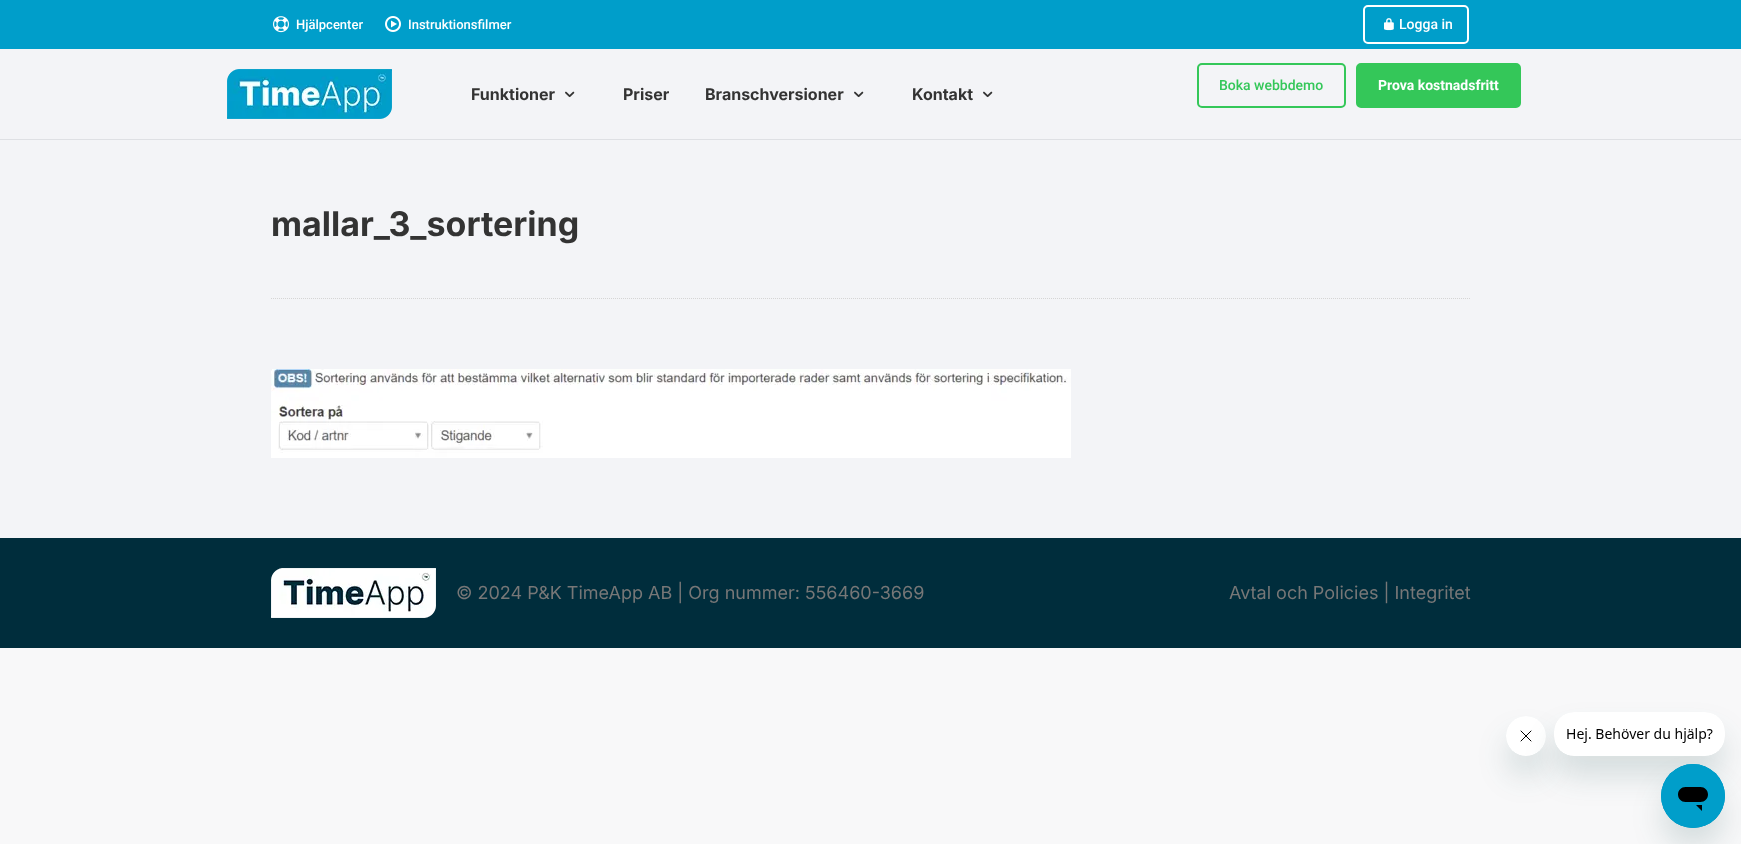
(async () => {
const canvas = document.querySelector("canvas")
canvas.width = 1741
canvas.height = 844
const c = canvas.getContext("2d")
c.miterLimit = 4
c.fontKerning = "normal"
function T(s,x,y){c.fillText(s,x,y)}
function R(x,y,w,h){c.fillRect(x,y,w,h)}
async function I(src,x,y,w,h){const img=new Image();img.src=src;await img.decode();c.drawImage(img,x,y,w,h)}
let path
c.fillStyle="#f8f8f9"
R(0,0,1741,844)
c.fillStyle="#f3f4f7"
R(0,49,1741,489)
c.fillStyle="#dee0e4"
R(0,139,1741,1)
c.fillStyle="#009eca"
R(0,0,1741,49)
await I("1.png",273,16,16,17)
c.font="500 13px Roboto"
c.fillStyle="#fff"
T("Hjälpcenter",296,29)
await I("2.png",385,16,16,16)
T("Instruktionsfilmer",408,29)
c.beginPath()
c.roundRect(1364,6,104,37,4)
c.strokeStyle="#fff"
c.lineWidth=2
c.stroke()
await I("3.png",1384,18,10,13)
c.font="500 14px Roboto"
T("Logga in",1399,29)
await I("4.png",227,69,165,50)
c.beginPath()
c.roundRect(1198,64,147,43,4)
c.strokeStyle="#34c759"
c.stroke()
c.fillStyle="#34c759"
T("Boka webbdemo",1219,90)
c.beginPath()
c.roundRect(1357,64,163,43,4)
c.fill()
c.stroke()
c.font="bold 14px Roboto"
c.fillStyle="#fff"
T("Prova kostnadsfritt",1378,90)
c.font="bold 16px Inter"
c.fillStyle="#333"
T("Funktioner",471,100)
await I("5.png",565,91,10,7)
T("Priser",623,100)
T("Branschversioner",705,100)
await I("5.png",854,91,10,7)
T("Kontakt",912,100)
await I("5.png",983,91,10,7)
c.font="bold 34px Inter"
T("mallar_3_sortering",271,236)
path = new Path2D("M271 298.5h1200")
c.strokeStyle="#d5d5d5"
c.lineWidth=1
c.setLineDash([1,1])
c.stroke(path)
await I("6.png",271,369,800,89)
c.fillStyle="#002d3c"
R(0,538,1741,110)
await I("7.png",271,568,165,50)
c.font="18px Inter"
c.fillStyle="#777"
T("© 2024 P&K TimeApp AB | Org nummer: 556460-3669",456,599)
T("Avtal och Policies | Integritet",1229,599)
c.fillStyle="#17494d26"
c.filter="blur(15px)"
c.beginPath()
c.roundRect(1506,736,40,40,20)
c.fill()
c.filter="none"
await I("9.png",1506,716,40,40)
c.filter="blur(15px)"
c.beginPath()
c.roundRect(1554,732,171,44,20)
c.fill()
c.filter="none"
await I("8.png",1554,712,171,44)
c.filter="blur(15px)"
c.beginPath()
c.roundRect(1661,784,64,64,32)
c.fill()
c.filter="none"
await I("10.png",1661,764,64,64)
})()
